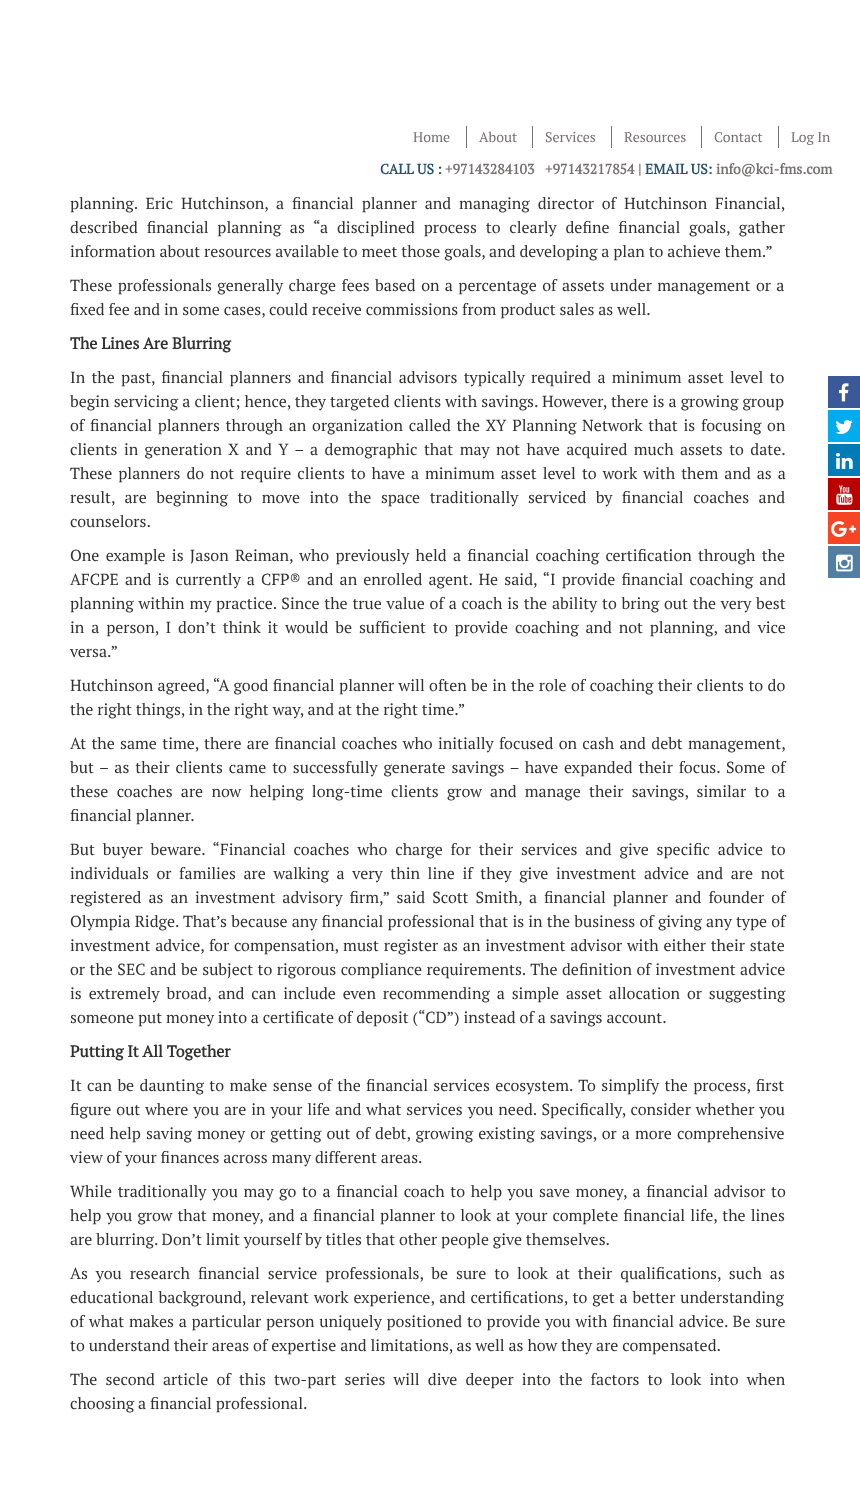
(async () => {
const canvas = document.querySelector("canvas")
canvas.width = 860
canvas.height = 1497
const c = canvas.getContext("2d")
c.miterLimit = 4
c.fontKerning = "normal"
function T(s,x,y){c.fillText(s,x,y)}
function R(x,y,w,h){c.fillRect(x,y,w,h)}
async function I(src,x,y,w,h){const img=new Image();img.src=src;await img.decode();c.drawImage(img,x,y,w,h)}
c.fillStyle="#fff"
R(0,0,860,1497)
c.font="14px PT Serif"
c.fillStyle="#767171"
T("Home",413,142)
R(466,126,1,22)
T("About",479,142)
R(532,126,1,22)
T("Services",545,142)
R(611,126,1,22)
T("Resources",624,142)
R(701,126,1,22)
T("Contact",714,142)
R(778,126,1,22)
T("Log In",791,142)
c.font="bold 14px PT Serif"
c.fillStyle="#2a516b"
T("CALL US :",380,174)
c.fillStyle="#767171"
T("+97143284103",445,174)
T("+97143217854 |",545,174)
c.fillStyle="#2a516b"
T("EMAIL US:",645,174)
c.fillStyle="#767171"
T("info@kci-fms.com",716,174)
c.wordSpacing="4px"
c.font="16px PT Serif"
c.fillStyle="#313130"
T("planning. Eric Hutchinson, a financial planner and managing director of Hutchinson Financial,",70,209)
c.wordSpacing="4.9px"
T("described financial planning as “a disciplined process to clearly define financial goals, gather",70,233)
c.wordSpacing="0px"
T("information about resources available to meet those goals, and developing a plan to achieve them.”",70,257)
c.wordSpacing="1.5px"
T("These professionals generally charge fees based on a percentage of assets under management or a",70,291)
c.wordSpacing="0px"
T("fixed fee and in some cases, could receive commissions from product sales as well.",70,315)
c.font="bold 16px PT Serif"
T("The Lines Are Blurring",70,349)
c.wordSpacing="2.4px"
c.font="16px PT Serif"
T("In the past, financial planners and financial advisors typically required a minimum asset level to",70,383)
c.wordSpacing="0.25px"
T("begin servicing a client; hence, they targeted clients with savings. However, there is a growing group",70,407)
c.wordSpacing="1.9px"
T("of financial planners through an organization called the XY Planning Network that is focusing on",70,431)
c.wordSpacing="2.5px"
T("clients in generation X and Y – a demographic that may not have acquired much assets to date.",70,455)
c.wordSpacing="2.1px"
T("These planners do not require clients to have a minimum asset level to work with them and as a",70,479)
c.wordSpacing="5.6px"
T("result, are beginning to move into the space traditionally serviced by financial coaches and",70,503)
c.wordSpacing="0px"
T("counselors.",70,527)
c.wordSpacing="2.4px"
T("One example is Jason Reiman, who previously held a financial coaching certification through the",70,561)
c.wordSpacing="2.25px"
T("AFCPE and is currently a CFP® and an enrolled agent. He said, “I provide financial coaching and",70,585)
c.wordSpacing="0.9px"
T("planning within my practice. Since the true value of a coach is the ability to bring out the very best",70,609)
c.wordSpacing="3px"
T("in a person, I don’t think it would be sufficient to provide coaching and not planning, and vice",70,633)
c.wordSpacing="0px"
T("versa.”",70,657)
c.wordSpacing="0.5px"
T("Hutchinson agreed, “A good financial planner will often be in the role of coaching their clients to do",70,691)
c.wordSpacing="0px"
T("the right things, in the right way, and at the right time.”",70,715)
c.wordSpacing="1.4px"
T("At the same time, there are financial coaches who initially focused on cash and debt management,",70,749)
c.wordSpacing="2px"
T("but – as their clients came to successfully generate savings – have expanded their focus. Some of",70,773)
c.wordSpacing="4.4px"
T("these coaches are now helping long-time clients grow and manage their savings, similar to a",70,797)
c.wordSpacing="0px"
T("financial planner.",70,821)
c.wordSpacing="4px"
T("But buyer beware. “Financial coaches who charge for their services and give specific advice to",70,855)
c.wordSpacing="3.75px"
T("individuals or families are walking a very thin line if they give investment advice and are not",70,879)
c.wordSpacing="3.1px"
T("registered as an investment advisory firm,” said Scott Smith, a financial planner and founder of",70,903)
c.wordSpacing="0.25px"
T("Olympia Ridge. That’s because any financial professional that is in the business of giving any type of",70,927)
c.wordSpacing="0.9px"
T("investment advice, for compensation, must register as an investment advisor with either their state",70,951)
c.wordSpacing="0.6px"
T("or the SEC and be subject to rigorous compliance requirements. The definition of investment advice",70,975)
c.wordSpacing="3px"
T("is extremely broad, and can include even recommending a simple asset allocation or suggesting",70,999)
c.wordSpacing="0px"
T("someone put money into a certificate of deposit (“CD”) instead of a savings account.",70,1023)
c.font="bold 16px PT Serif"
T("Putting It All Together",70,1057)
c.wordSpacing="1.5px"
c.font="16px PT Serif"
T("It can be daunting to make sense of the financial services ecosystem. To simplify the process, first",70,1091)
c.wordSpacing="1px"
T("figure out where you are in your life and what services you need. Specifically, consider whether you",70,1115)
c.wordSpacing="1.25px"
T("need help saving money or getting out of debt, growing existing savings, or a more comprehensive",70,1139)
c.wordSpacing="0px"
T("view of your finances across many different areas.",70,1163)
c.wordSpacing="1.75px"
T("While traditionally you may go to a financial coach to help you save money, a financial advisor to",70,1197)
c.wordSpacing="1.25px"
T("help you grow that money, and a financial planner to look at your complete financial life, the lines",70,1221)
c.wordSpacing="0px"
T("are blurring. Don’t limit yourself by titles that other people give themselves.",70,1245)
c.wordSpacing="4.1px"
T("As you research financial service professionals, be sure to look at their qualifications, such as",70,1279)
c.wordSpacing="1px"
T("educational background, relevant work experience, and certifications, to get a better understanding",70,1303)
c.wordSpacing="0.9px"
T("of what makes a particular person uniquely positioned to provide you with financial advice. Be sure",70,1327)
c.wordSpacing="0px"
T("to understand their areas of expertise and limitations, as well as how they are compensated.",70,1351)
c.wordSpacing="4.25px"
T("The second article of this two-part series will dive deeper into the factors to look into when",70,1385)
c.wordSpacing="0px"
T("choosing a financial professional.",70,1409)
c.fillStyle="#3b5998"
R(828,376,32,32)
await I("1.png",839,383,10,19)
c.fillStyle="#00aced"
R(828,410,32,32)
await I("2.png",835,420,18,14)
c.fillStyle="#007bb6"
R(828,444,32,32)
await I("3.png",836,452,17,17)
c.fillStyle="#b00"
R(828,478,32,32)
await I("4.png",836,485,17,20)
c.fillStyle="#f74425"
R(828,512,32,32)
await I("5.png",831,521,26,16)
c.fillStyle="#517fa4"
R(828,546,32,32)
await I("6.png",836,554,17,18)
})()
